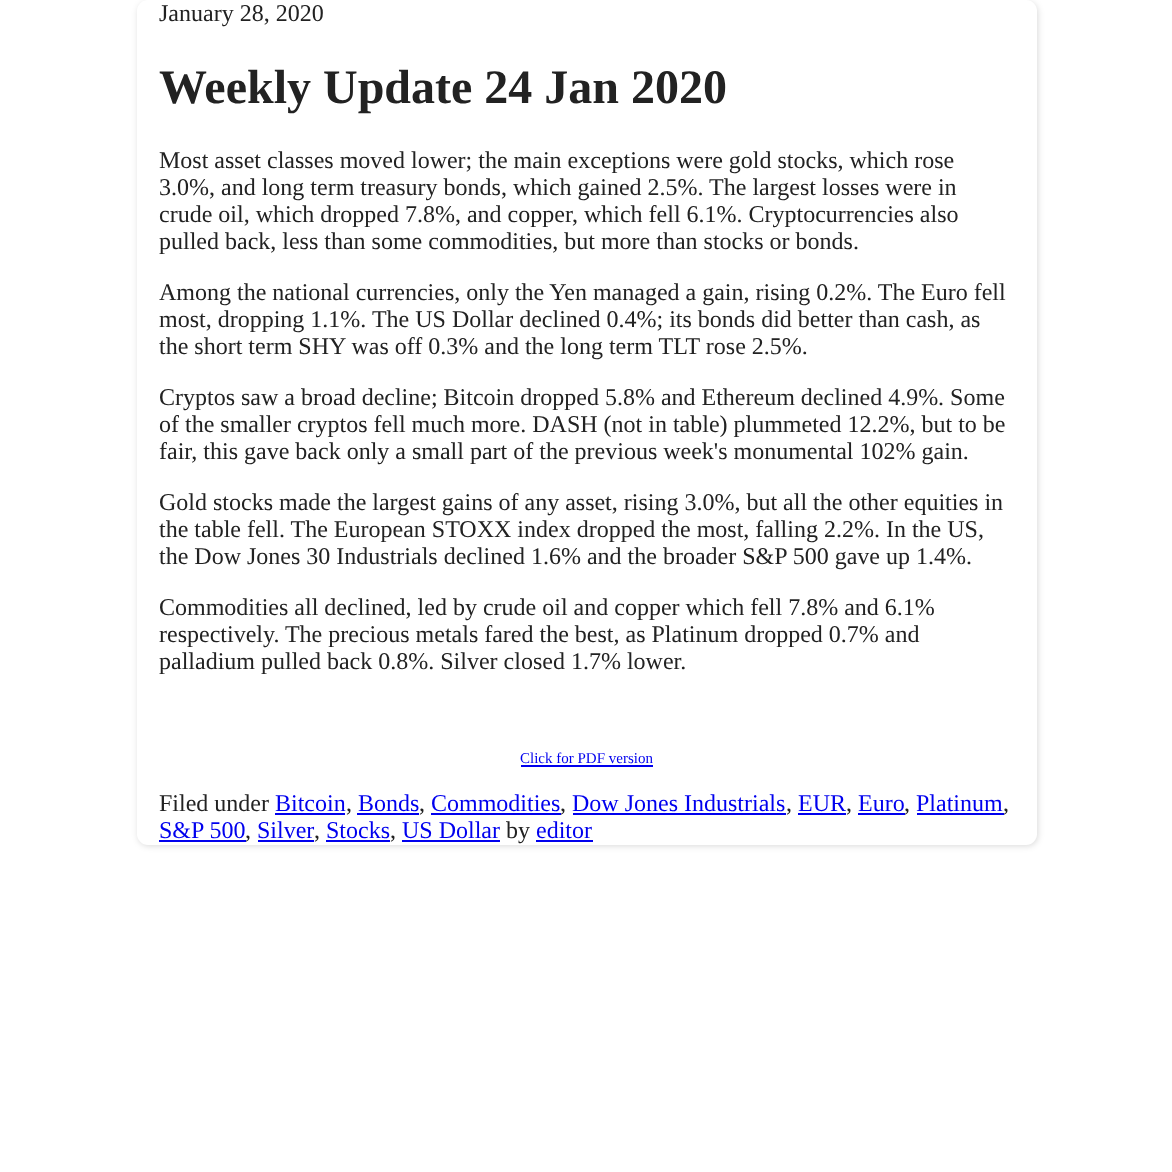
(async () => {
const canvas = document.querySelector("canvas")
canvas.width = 1172
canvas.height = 1172
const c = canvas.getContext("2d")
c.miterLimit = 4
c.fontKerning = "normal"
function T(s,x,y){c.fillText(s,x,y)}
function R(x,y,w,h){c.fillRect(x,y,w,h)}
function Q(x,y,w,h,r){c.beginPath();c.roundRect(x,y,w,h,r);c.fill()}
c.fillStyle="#fff"
R(0,0,1172,1172)
c.fillStyle="#00000026"
c.filter="blur(3px)"
c.beginPath()
c.roundRect(138,2,900,844,11)
c.fill()
c.filter="none"
c.fillStyle="#fff"
Q(137,0,900,845,11)
c.font="24px Liberation Serif"
c.fillStyle="#222"
T("January 28, 2020",159,21)
c.font="bold 48px Liberation Serif"
T("Weekly Update 24 Jan 2020",159,103)
c.font="24px Liberation Serif"
T("Most asset classes moved lower; the main exceptions were gold stocks, which rose",159,168)
T("3.0%, and long term treasury bonds, which gained 2.5%. The largest losses were in",159,195)
T("crude oil, which dropped 7.8%, and copper, which fell 6.1%. Cryptocurrencies also",159,222)
T("pulled back, less than some commodities, but more than stocks or bonds.",159,249)
T("Among the national currencies, only the Yen managed a gain, rising 0.2%. The Euro fell",159,300)
T("most, dropping 1.1%. The US Dollar declined 0.4%; its bonds did better than cash, as",159,327)
T("the short term SHY was off 0.3% and the long term TLT rose 2.5%.",159,354)
T("Cryptos saw a broad decline; Bitcoin dropped 5.8% and Ethereum declined 4.9%. Some",159,405)
T("of the smaller cryptos fell much more. DASH (not in table) plummeted 12.2%, but to be",159,432)
T("fair, this gave back only a small part of the previous week's monumental 102% gain.",159,459)
T("Gold stocks made the largest gains of any asset, rising 3.0%, but all the other equities in",159,510)
T("the table fell. The European STOXX index dropped the most, falling 2.2%. In the US,",159,537)
T("the Dow Jones 30 Industrials declined 1.6% and the broader S&P 500 gave up 1.4%.",159,564)
T("Commodities all declined, led by crude oil and copper which fell 7.8% and 6.1%",159,615)
T("respectively. The precious metals fared the best, as Platinum dropped 0.7% and",159,642)
T("palladium pulled back 0.8%. Silver closed 1.7% lower.",159,669)
c.font="15px Liberation Serif"
c.fillStyle="#00e"
T("Click for PDF version",520,763)
R(521,765,132,2)
c.font="24px Liberation Serif"
c.fillStyle="#222"
T("Filed under",159,811)
c.fillStyle="#00e"
T("Bitcoin",275,811)
R(275,813,70,2)
c.fillStyle="#222"
T(",",346,811)
c.fillStyle="#00e"
T("Bonds",358,811)
R(357,813,62,2)
c.fillStyle="#222"
T(",",419,811)
c.fillStyle="#00e"
T("Commodities",431,811)
R(431,813,130,2)
c.fillStyle="#222"
T(",",560,811)
c.fillStyle="#00e"
T("Dow Jones Industrials",572,811)
R(573,813,213,2)
c.fillStyle="#222"
T(",",786,811)
c.fillStyle="#00e"
T("EUR",798,811)
R(798,813,48,2)
c.fillStyle="#222"
T(",",846,811)
c.fillStyle="#00e"
T("Euro",858,811)
R(858,813,47,2)
c.fillStyle="#222"
T(",",904,811)
c.fillStyle="#00e"
T("Platinum",916,811)
R(917,813,87,2)
c.fillStyle="#222"
T(",",1003,811)
c.fillStyle="#00e"
T("S&P 500",159,838)
R(159,840,87,2)
c.fillStyle="#222"
T(",",245,838)
c.fillStyle="#00e"
T("Silver",257,838)
R(258,840,56,2)
c.fillStyle="#222"
T(",",314,838)
c.fillStyle="#00e"
T("Stocks",326,838)
R(326,840,64,2)
c.fillStyle="#222"
T(",",390,838)
c.fillStyle="#00e"
T("US Dollar",402,838)
R(402,840,98,2)
c.fillStyle="#222"
T("by",506,838)
c.fillStyle="#00e"
T("editor",536,838)
R(536,840,57,2)
})()
